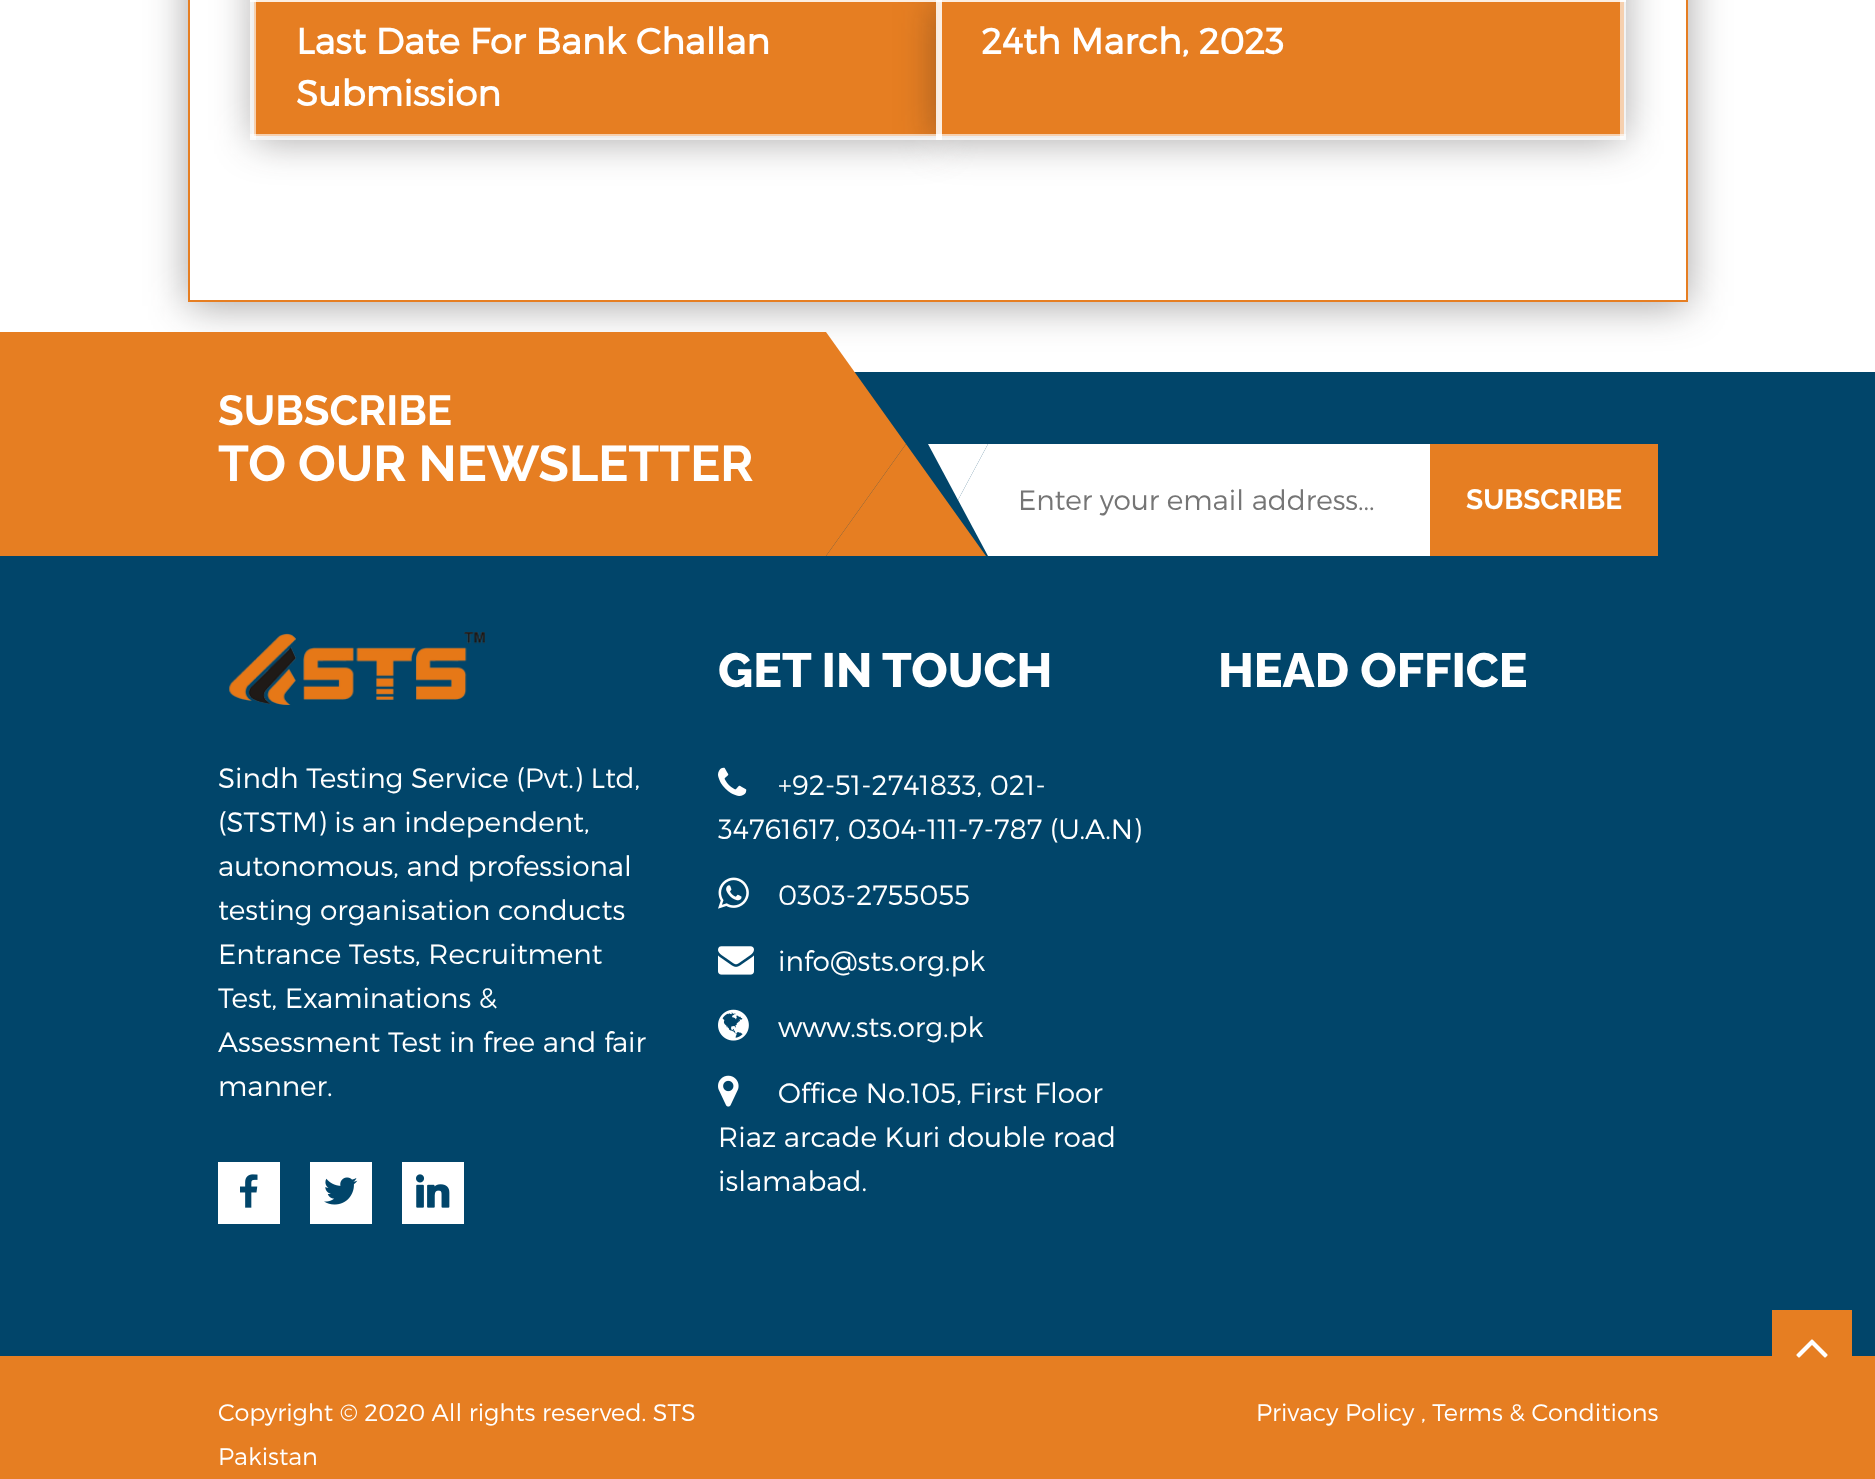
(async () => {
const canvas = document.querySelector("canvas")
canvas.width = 1875
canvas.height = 1479
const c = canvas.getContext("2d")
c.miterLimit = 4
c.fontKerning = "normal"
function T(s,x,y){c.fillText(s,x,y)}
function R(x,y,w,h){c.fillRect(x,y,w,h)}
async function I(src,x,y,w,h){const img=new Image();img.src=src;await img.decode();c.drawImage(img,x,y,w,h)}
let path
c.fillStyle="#fff"
R(0,0,1875,1479)
c.save()
path = new Path2D("M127 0h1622v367h-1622zm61-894h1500v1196h-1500z")
c.clip(path,"evenodd")
c.fillStyle="#221e1f66"
c.filter="blur(20px)"
c.beginPath()
c.rect(188,-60,1500,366)
c.fill()
c.filter="none"
c.restore()
c.strokeStyle="#e67e22"
c.lineWidth=2
c.strokeRect(189,-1,1498,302)
c.fillStyle="#221e1f66"
c.filter="blur(20px)"
c.beginPath()
c.rect(938,-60,686,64)
c.fill()
c.filter="none"
c.filter="blur(20px)"
c.beginPath()
c.rect(254,-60,684,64)
c.fill()
c.filter="none"
c.filter="blur(20px)"
c.beginPath()
c.rect(254,4,684,136)
c.fill()
c.filter="none"
c.fillStyle="#e67e22"
R(254,0,684,136)
c.fillStyle="#221e1f66"
c.filter="blur(20px)"
c.beginPath()
c.rect(938,4,686,136)
c.fill()
c.filter="none"
c.fillStyle="#ddd"
R(1624,0,2,140)
R(250,138,1376,2)
R(250,0,2,140)
c.fillStyle="#e67e22"
R(938,0,686,136)
c.fillStyle="#ffffffa3"
R(936,0,690,2)
R(1620,0,6,140)
R(1620,0,6,2)
R(936,134,690,6)
R(936,0,6,140)
R(250,0,692,2)
R(936,0,6,140)
R(936,0,690,2)
R(250,134,692,6)
R(250,0,6,140)
R(250,0,692,2)
R(250,0,6,2)
c.font="bold 36px Montserrat"
c.fillStyle="#fff"
T("Last Date For Bank Challan",296,54)
T("Submission",296,106)
T("24th March, 2023",981,54)
c.fillStyle="#01456a"
R(854,372,1021,90)
R(0,462,1875,894)
c.fillStyle="#e67e22"
R(0,332,826,224)
c.fillStyle="#fff"
path = new Path2D("M928 444h60l-30 56z")
c.fill(path)
path = new Path2D("M988 444v112l-30-56z")
c.fill(path)
c.fillStyle="#e67e22"
path = new Path2D("M986 556h-160l80-112z")
c.fill(path)
path = new Path2D("M826 556v-224l80 112z")
c.fill(path)
c.font="bold 42px Raleway"
c.fillStyle="#fff"
T("SUBSCRIBE",218,425)
c.font="bold 50px Raleway"
T("TO OUR NEWSLETTER",218,481)
R(988,444,442,112)
c.font="300 28px Montserrat"
c.fillStyle="#757575"
T("Enter your email address...",1018,510)
c.fillStyle="#e67e22"
R(1430,444,228,112)
c.font="bold 28px Raleway"
c.fillStyle="#fff"
T("SUBSCRIBE",1466,509)
c.font="800 48px Raleway"
T("GET IN TOUCH",718,687)
await I("1.png",718,767,29,29)
c.font="300 28px Montserrat"
T("+92-51-2741833, 021-",778,795)
T("34761617, 0304-111-7-787 (U.A.N)",718,839)
await I("2.png",718,877,31,32)
T("0303-2755055",778,905)
await I("3.png",718,946,36,29)
T("info@sts.org.pk",778,971)
await I("4.png",718,1009,31,32)
T("www.sts.org.pk",778,1037)
await I("5.png",718,1075,21,32)
T("Office No.105, First Floor",778,1103)
T("Riaz arcade Kuri double road",718,1147)
T("islamabad.",718,1191)
c.font="800 48px Raleway"
T("HEAD OFFICE",1218,687)
await I("6.png",229,632,256,73)
c.font="300 28px Montserrat"
T("Sindh Testing Service (Pvt.) Ltd,",218,788)
T("(STSTM) is an independent,",218,832)
T("autonomous, and professional",218,876)
T("testing organisation conducts",218,920)
T("Entrance Tests, Recruitment",218,964)
T("Test, Examinations &",218,1008)
T("Assessment Test in free and fair",218,1052)
T("manner.",218,1096)
R(218,1162,62,62)
await I("7.png",240,1174,18,34)
R(310,1162,62,62)
await I("8.png",324,1177,34,28)
R(402,1162,62,62)
await I("9.png",416,1174,34,34)
c.fillStyle="#e67e22"
R(0,1356,1875,123)
c.font="300 24px Montserrat"
c.fillStyle="#fff"
T("Copyright © 2020 All rights reserved. STS",218,1421)
T("Pakistan",218,1465)
T("Privacy Policy , Terms & Conditions",1256,1421)
c.fillStyle="#e67e22"
R(1772,1310,80,46)
await I("10.png",1796,1339,32,19)
})()
